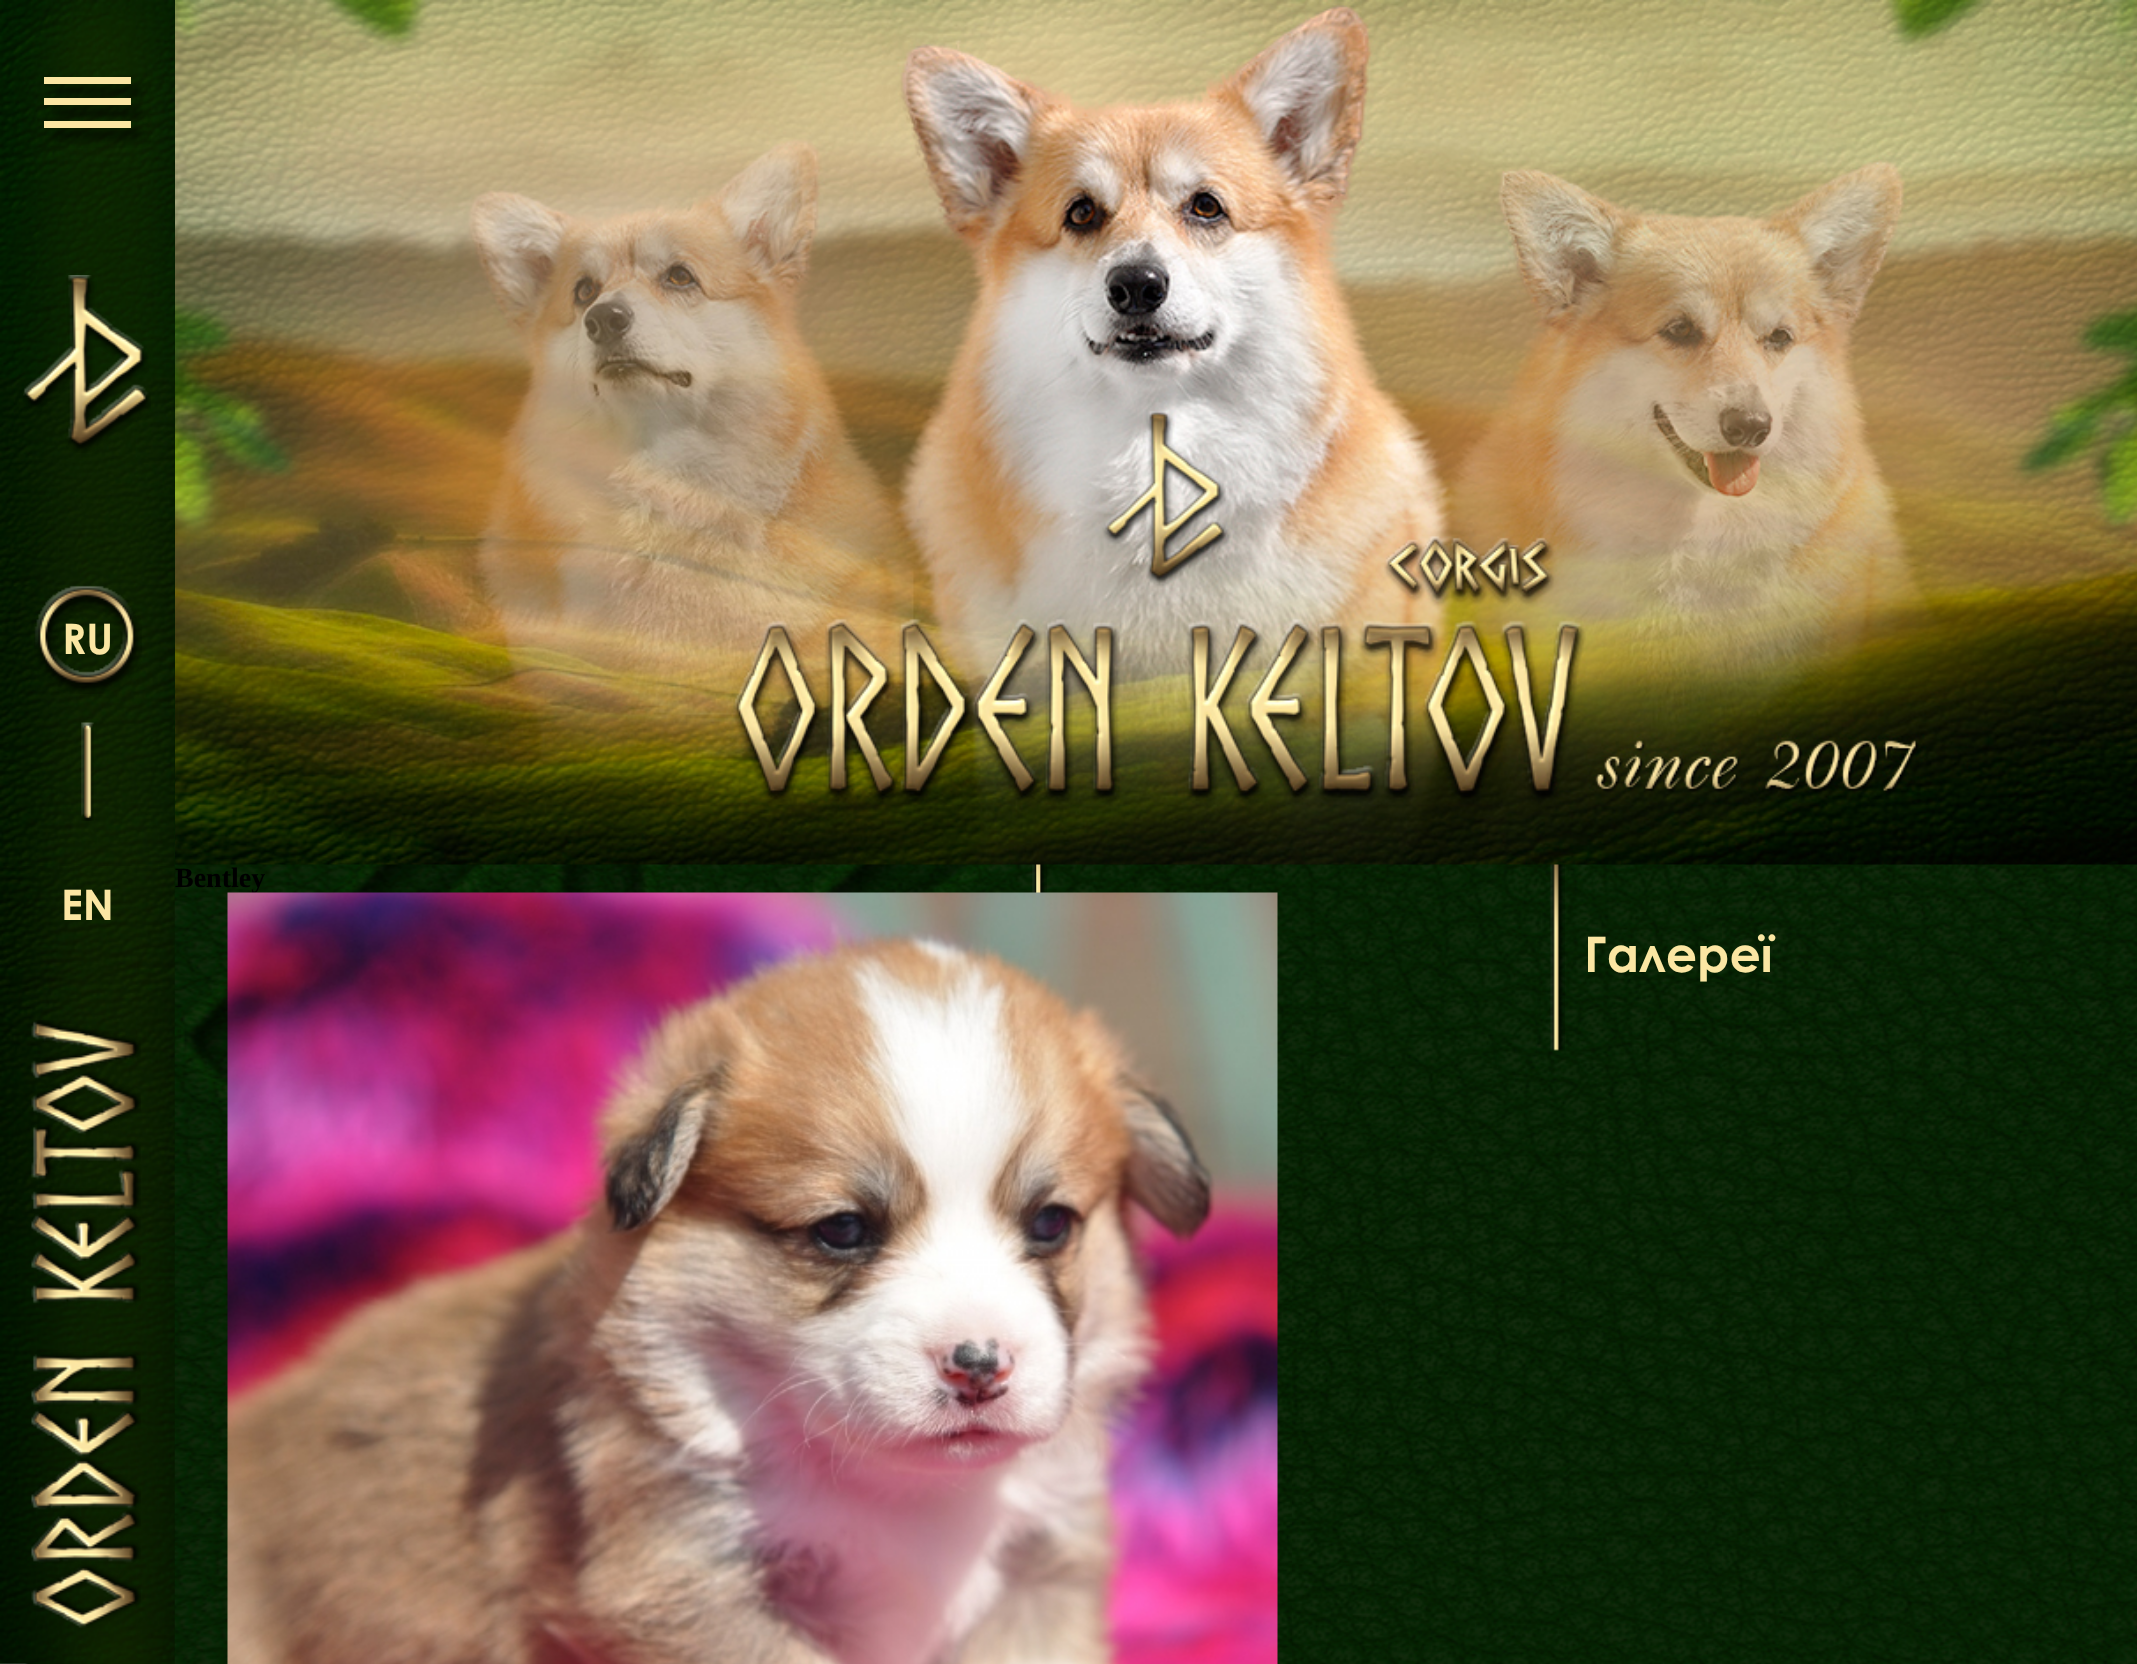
(async () => {
const canvas = document.querySelector("canvas")
canvas.width = 2137
canvas.height = 1664
const c = canvas.getContext("2d")
c.miterLimit = 4
c.fontKerning = "normal"
function T(s,x,y){c.fillText(s,x,y)}
function R(x,y,w,h){c.fillRect(x,y,w,h)}
async function I(src,x,y,w,h){const img=new Image();img.src=src;await img.decode();c.drawImage(img,x,y,w,h)}
c.fillStyle="#fff"
R(0,0,2137,1664)
await I("1.png",25,0,2112,1664)
await I("2.png",0,0,175,1664)
c.fillStyle="#000000b3"
c.filter="blur(4.5px)"
c.beginPath()
c.rect(54,88,88,7)
c.fill()
c.filter="none"
c.fillStyle="#fbe6a3"
R(44,77,87,7)
c.fillStyle="#000000b3"
c.filter="blur(4.5px)"
c.beginPath()
c.rect(54,109,88,7)
c.fill()
c.filter="none"
c.fillStyle="#fbe6a3"
R(44,98,87,7)
c.fillStyle="#000000b3"
c.filter="blur(4.5px)"
c.beginPath()
c.rect(54,131,88,7)
c.fill()
c.filter="none"
c.fillStyle="#fbe6a3"
R(44,121,87,7)
await I("3.png",23,275,128,178)
await I("4.png",34,585,108,109)
c.font="bold 42px Century Gothic"
T("RU",62,654)
await I("5.png",81,722,13,99)
T("EN",61,920)
await I("6.png",31,1020,110,608)
await I("7.png",1032,864,15,29)
await I("8.png",1550,864,15,187)
c.font="bold 49px Century Gothic"
T("Галереї",1584,972)
await I("9.png",175,0,1962,865)
c.font="bold 28px Liberation Serif"
c.fillStyle="#000"
T("Bentley",175,887)
await I("10.png",227,892,1051,772)
})()
